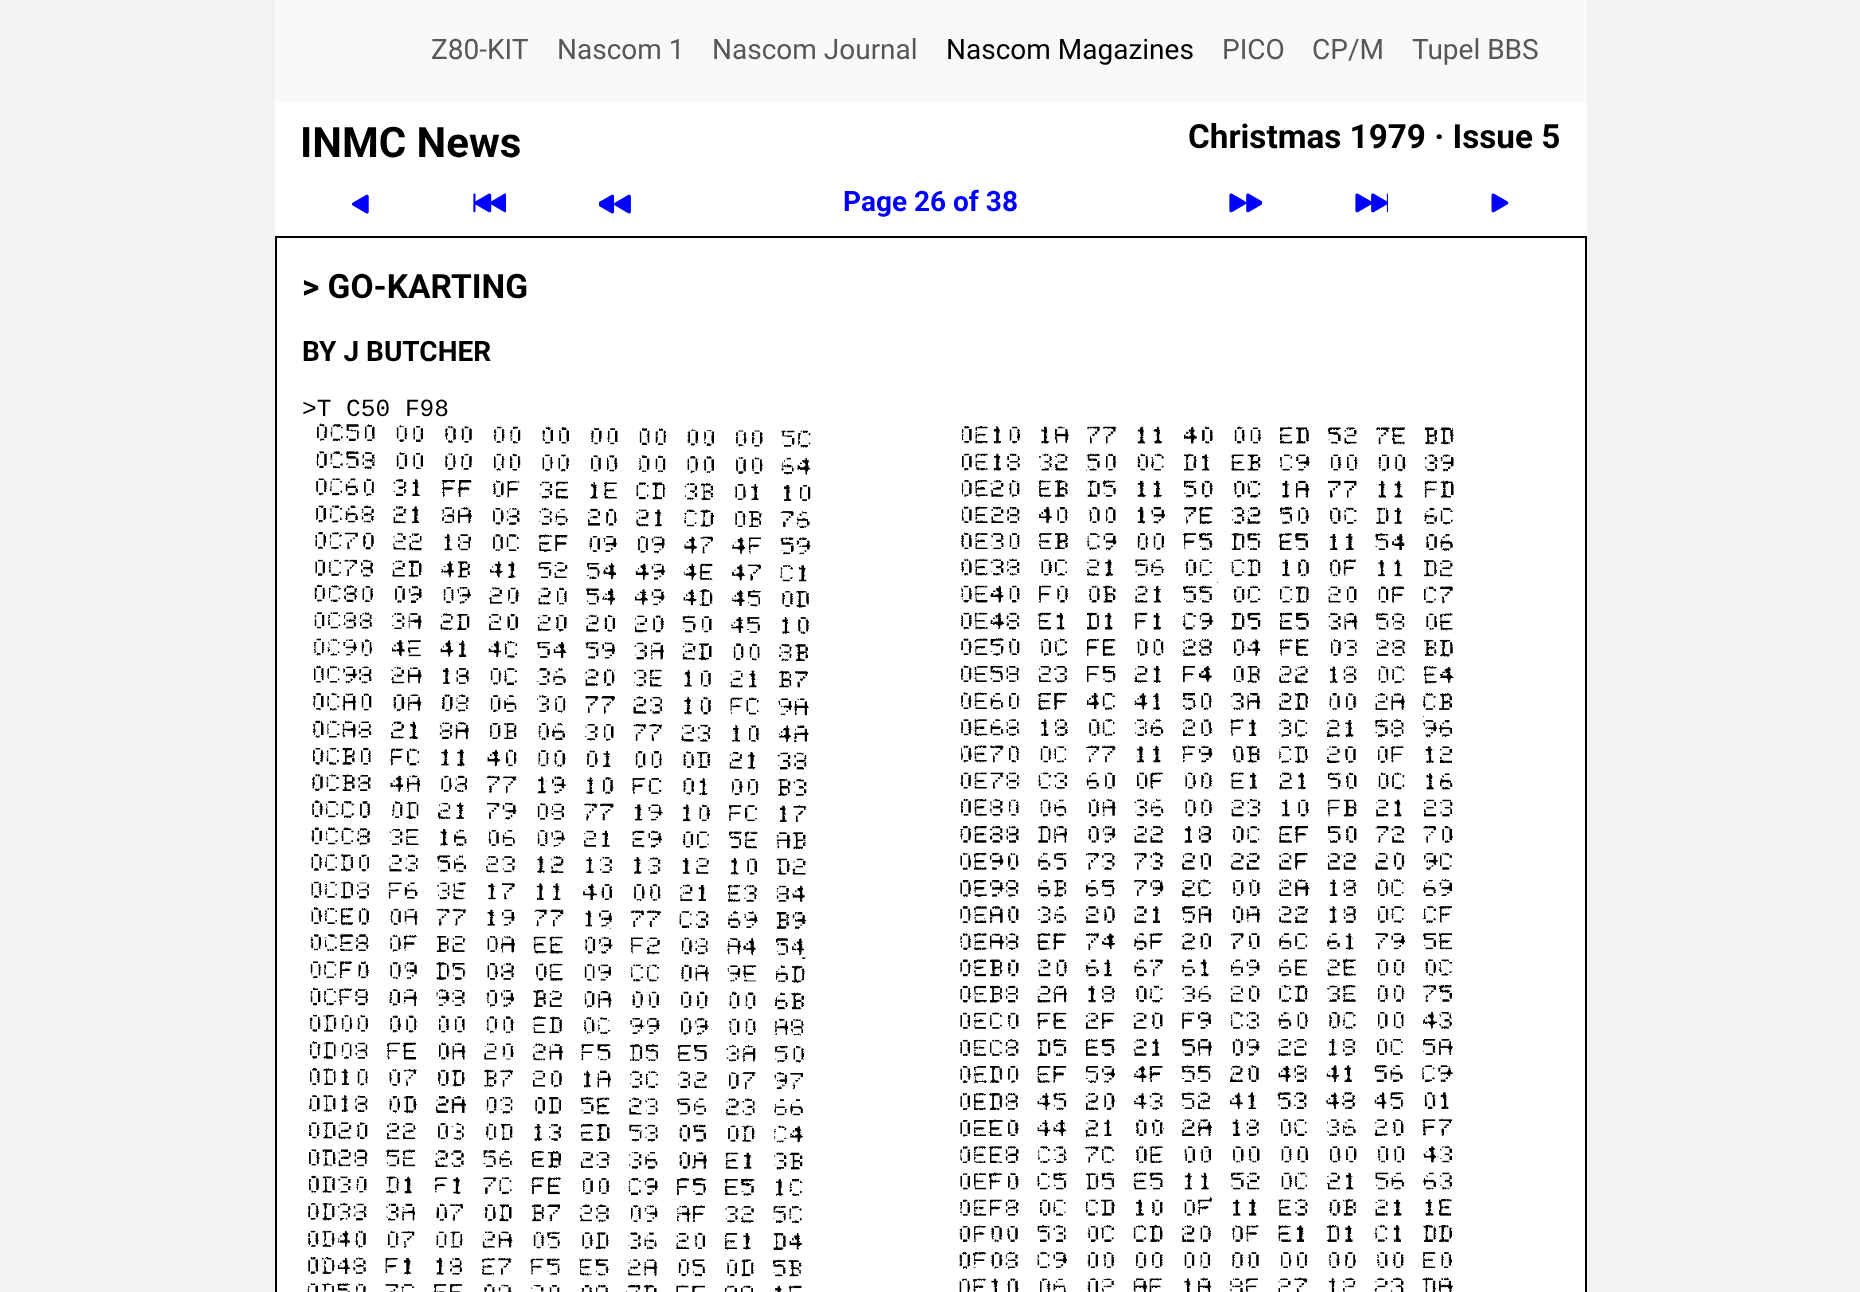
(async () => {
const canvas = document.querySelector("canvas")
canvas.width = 1860
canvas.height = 1292
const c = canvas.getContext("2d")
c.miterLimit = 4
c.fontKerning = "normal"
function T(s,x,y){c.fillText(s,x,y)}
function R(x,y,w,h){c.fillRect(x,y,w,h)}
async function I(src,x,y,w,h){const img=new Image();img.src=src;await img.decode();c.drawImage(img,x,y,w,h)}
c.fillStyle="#f2f2f2"
R(0,0,1860,1292)
c.fillStyle="#f8f9fa"
R(275,0,1312,102)
c.font="28px Roboto"
c.fillStyle="#575758"
T("Z80-KIT",431,59)
T("Nascom 1",557,59)
T("Nascom Journal",712,59)
c.fillStyle="#000"
T("Nascom Magazines",946,59)
c.fillStyle="#575758"
T("PICO",1222,59)
T("CP/M",1312,59)
T("Tupel BBS",1412,59)
c.fillStyle="#fff"
R(275,102,1312,1190)
c.font="bold 42px Roboto"
c.fillStyle="#000"
T("INMC News",300,157)
c.font="bold 33.25px Roboto"
T("Christmas 1979 · Issue 5",1188,148)
await I("1.png",352,194,17,20)
await I("2.png",473,193,33,20)
await I("3.png",599,194,32,20)
c.font="bold 28px Roboto"
c.fillStyle="#00f"
T("Page 26 of 38",843,211)
await I("4.png",1229,193,33,20)
await I("5.png",1355,193,33,20)
await I("6.png",1491,193,18,20)
c.strokeStyle="#000"
c.lineWidth=2
c.strokeRect(276,237,1310,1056)
c.font="bold 33.5px Roboto"
c.fillStyle="#000"
T("> GO-KARTING",302,298)
c.font="bold 28px Roboto"
T("BY J BUTCHER",302,361)
c.font="24.5px Liberation Mono"
T(">T C50 F98",302,416)
await I("7.png",307,423,504,869)
await I("8.png",959,426,495,866)
})()
